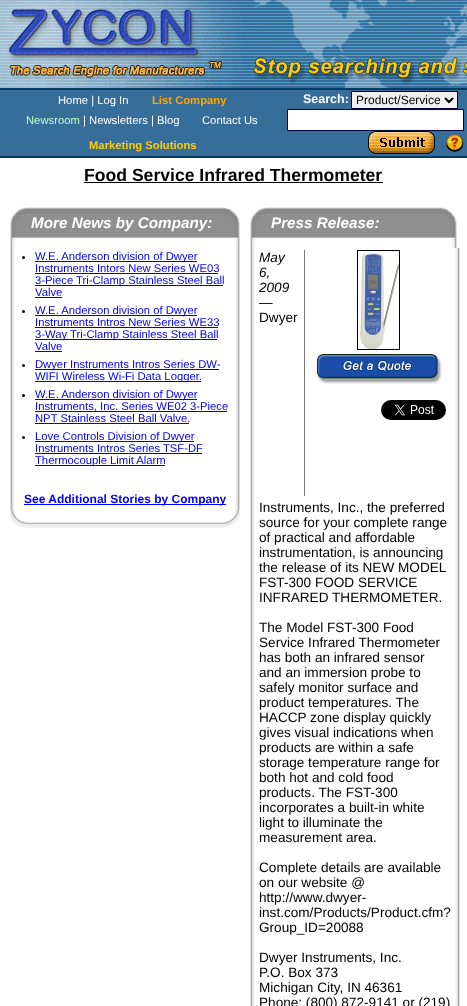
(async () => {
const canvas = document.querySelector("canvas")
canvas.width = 467
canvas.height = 1006
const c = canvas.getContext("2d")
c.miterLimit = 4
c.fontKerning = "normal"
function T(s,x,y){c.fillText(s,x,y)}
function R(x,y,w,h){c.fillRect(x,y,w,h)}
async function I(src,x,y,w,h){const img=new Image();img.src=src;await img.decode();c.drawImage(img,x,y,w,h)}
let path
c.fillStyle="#fff"
R(0,0,467,1006)
await I("1.png",250,0,3,88)
await I("2.png",0,0,250,88)
await I("3.png",253,0,214,88)
c.fillStyle="#376d99"
R(0,90,467,66)
c.fillStyle="#053c65"
R(0,88,467,2)
R(0,156,467,2)
c.font="11.25px Liberation Sans"
c.fillStyle="#fff"
T("Home | Log In",58,104)
c.font="bold 11.25px Liberation Sans"
c.fillStyle="#ffa500"
T("List Company",152,104)
c.font="bold 12.5px Liberation Sans"
c.fillStyle="#fff"
T("Search:",303,103)
c.fillStyle="#efefef"
c.beginPath()
c.rect(351.5,91.5,106,17)
c.fill()
c.strokeStyle="#004"
c.stroke()
path = new Path2D("M445 98l4 4l4-4")
c.strokeStyle="#000"
c.lineWidth=2
c.stroke(path)
c.font="12px Liberation Sans"
c.fillStyle="#000"
T("Product/Service",356,104)
c.fillStyle="#fff"
c.beginPath()
c.rect(287.5,109.5,176,21)
c.fill()
c.strokeStyle="#004"
c.lineWidth=1
c.stroke()
await I("4.png",368,131,67,23)
await I("5.png",446,134,18,18)
c.font="11.25px Liberation Sans"
c.fillStyle="#c0ffc0"
T("Newsroom",26,124)
c.fillStyle="#fff"
T("| Newsletters | Blog",83,124)
T("Contact Us",202,124)
c.font="bold 11.25px Liberation Sans"
c.fillStyle="#fc0"
T("Marketing Solutions",89,149)
c.font="bold 17.6px Liberation Sans"
c.fillStyle="#000"
T("Food Service Infrared Thermometer",84,181)
R(84,182,299,1)
await I("6.png",10,207,21,41)
await I("7.png",31,207,188,32)
c.font="italic bold 15.25px Liberation Sans"
c.fillStyle="#fff"
T("More News by Company:",31,228)
await I("8.png",219,207,21,41)
await I("9.png",10,248,5,226)
c.fillStyle="#000"
c.beginPath()
c.arc(23.5,257.5,1.5,0,7)
c.fill()
c.fillStyle="#00e"
R(35,261,162,1)
c.font="11.25px Liberation Sans"
T("W.E. Anderson division of Dwyer",35,260)
T("Instruments Intors New Series WE03",35,272)
R(35,273,183,1)
R(35,285,188,1)
T("3-Piece Tri-Clamp Stainless Steel Ball",35,284)
T("Valve",35,296)
R(35,297,27,1)
c.fillStyle="#000"
c.beginPath()
c.arc(23.5,311.5,1.5,0,7)
c.fill()
c.fillStyle="#00e"
R(35,315,162,1)
T("W.E. Anderson division of Dwyer",35,314)
T("Instruments Intros New Series WE33",35,326)
R(35,327,183,1)
R(35,339,182,1)
T("3-Way Tri-Clamp Stainless Steel Ball",35,338)
T("Valve",35,350)
R(35,351,27,1)
c.fillStyle="#000"
c.beginPath()
c.arc(23.5,365.5,1.5,0,7)
c.fill()
c.fillStyle="#00e"
R(35,369,184,1)
T("Dwyer Instruments Intros Series DW-",35,368)
R(35,381,166,1)
T("WIFI Wireless Wi-Fi Data Logger.",35,380)
c.fillStyle="#000"
c.beginPath()
c.arc(23.5,395.5,1.5,0,7)
c.fill()
c.fillStyle="#00e"
R(35,399,162,1)
T("W.E. Anderson division of Dwyer",35,398)
R(35,411,192,1)
T("Instruments, Inc. Series WE02 3-Piece",35,410)
T("NPT Stainless Steel Ball Valve.",35,422)
R(35,423,154,1)
c.fillStyle="#000"
c.beginPath()
c.arc(23.5,437.5,1.5,0,7)
c.fill()
c.fillStyle="#00e"
R(35,441,159,1)
T("Love Controls Division of Dwyer",35,440)
T("Instruments Intros Series TSF-DF",35,452)
R(35,453,167,1)
R(35,465,130,1)
T("Thermocouple Limit Alarm",35,464)
await I("10.png",235,248,5,226)
await I("11.png",10,474,5,16)
await I("12.png",235,474,5,16)
await I("13.png",10,490,5,18)
c.fillStyle="#00f"
R(24,504,202,1)
c.font="bold 12px Liberation Sans"
T("See Additional Stories by Company",24,503)
await I("14.png",235,490,5,18)
await I("15.png",10,508,21,20)
await I("16.png",31,522,188,6)
await I("17.png",219,508,21,20)
await I("6.png",250,207,21,41)
await I("18.png",271,207,165,32)
c.font="italic bold 15.25px Liberation Sans"
c.fillStyle="#fff"
T("Press Release:",271,228)
await I("8.png",436,207,21,41)
await I("19.png",250,248,5,758)
c.font="italic 13.6px Liberation Sans"
c.fillStyle="#000"
T("May",259,262)
c.fillStyle="#777"
R(304,250,1,246)
await I("20.png",357,250,43,100)
await I("21.png",317,354,125,30)
await I("22.png",381,400,65,20)
c.fillStyle="#000"
T("6,",259,277)
T("2009",259,292)
c.font="13.6px Liberation Sans"
T("—",259,307)
T("Dwyer",259,322)
T("Instruments, Inc., the preferred",259,512)
T("source for your complete range",259,527)
T("of practical and affordable",259,542)
T("instrumentation, is announcing",259,557)
T("the release of its NEW MODEL",259,572)
T("FST-300 FOOD SERVICE",259,587)
T("INFRARED THERMOMETER.",259,602)
T("The Model FST-300 Food",259,632)
T("Service Infrared Thermometer",259,647)
T("has both an infrared sensor",259,662)
T("and an immersion probe to",259,677)
T("safely monitor surface and",259,692)
T("product temperatures. The",259,707)
T("HACCP zone display quickly",259,722)
T("gives visual indications when",259,737)
T("products are within a safe",259,752)
T("storage temperature range for",259,767)
T("both hot and cold food",259,782)
T("products. The FST-300",259,797)
T("incorporates a built-in white",259,812)
T("light to illuminate the",259,827)
T("measurement area.",259,842)
T("Complete details are available",259,872)
T("on our website @",259,887)
T("http://www.dwyer-",259,902)
T("inst.com/Products/Product.cfm?",259,917)
T("Group_ID=20088",259,932)
T("Dwyer Instruments, Inc.",259,962)
T("P.O. Box 373",259,977)
T("Michigan City, IN 46361",259,992)
T("Phone: (800) 872-9141 or (219)",259,1007)
await I("23.png",455,248,5,758)
})()
